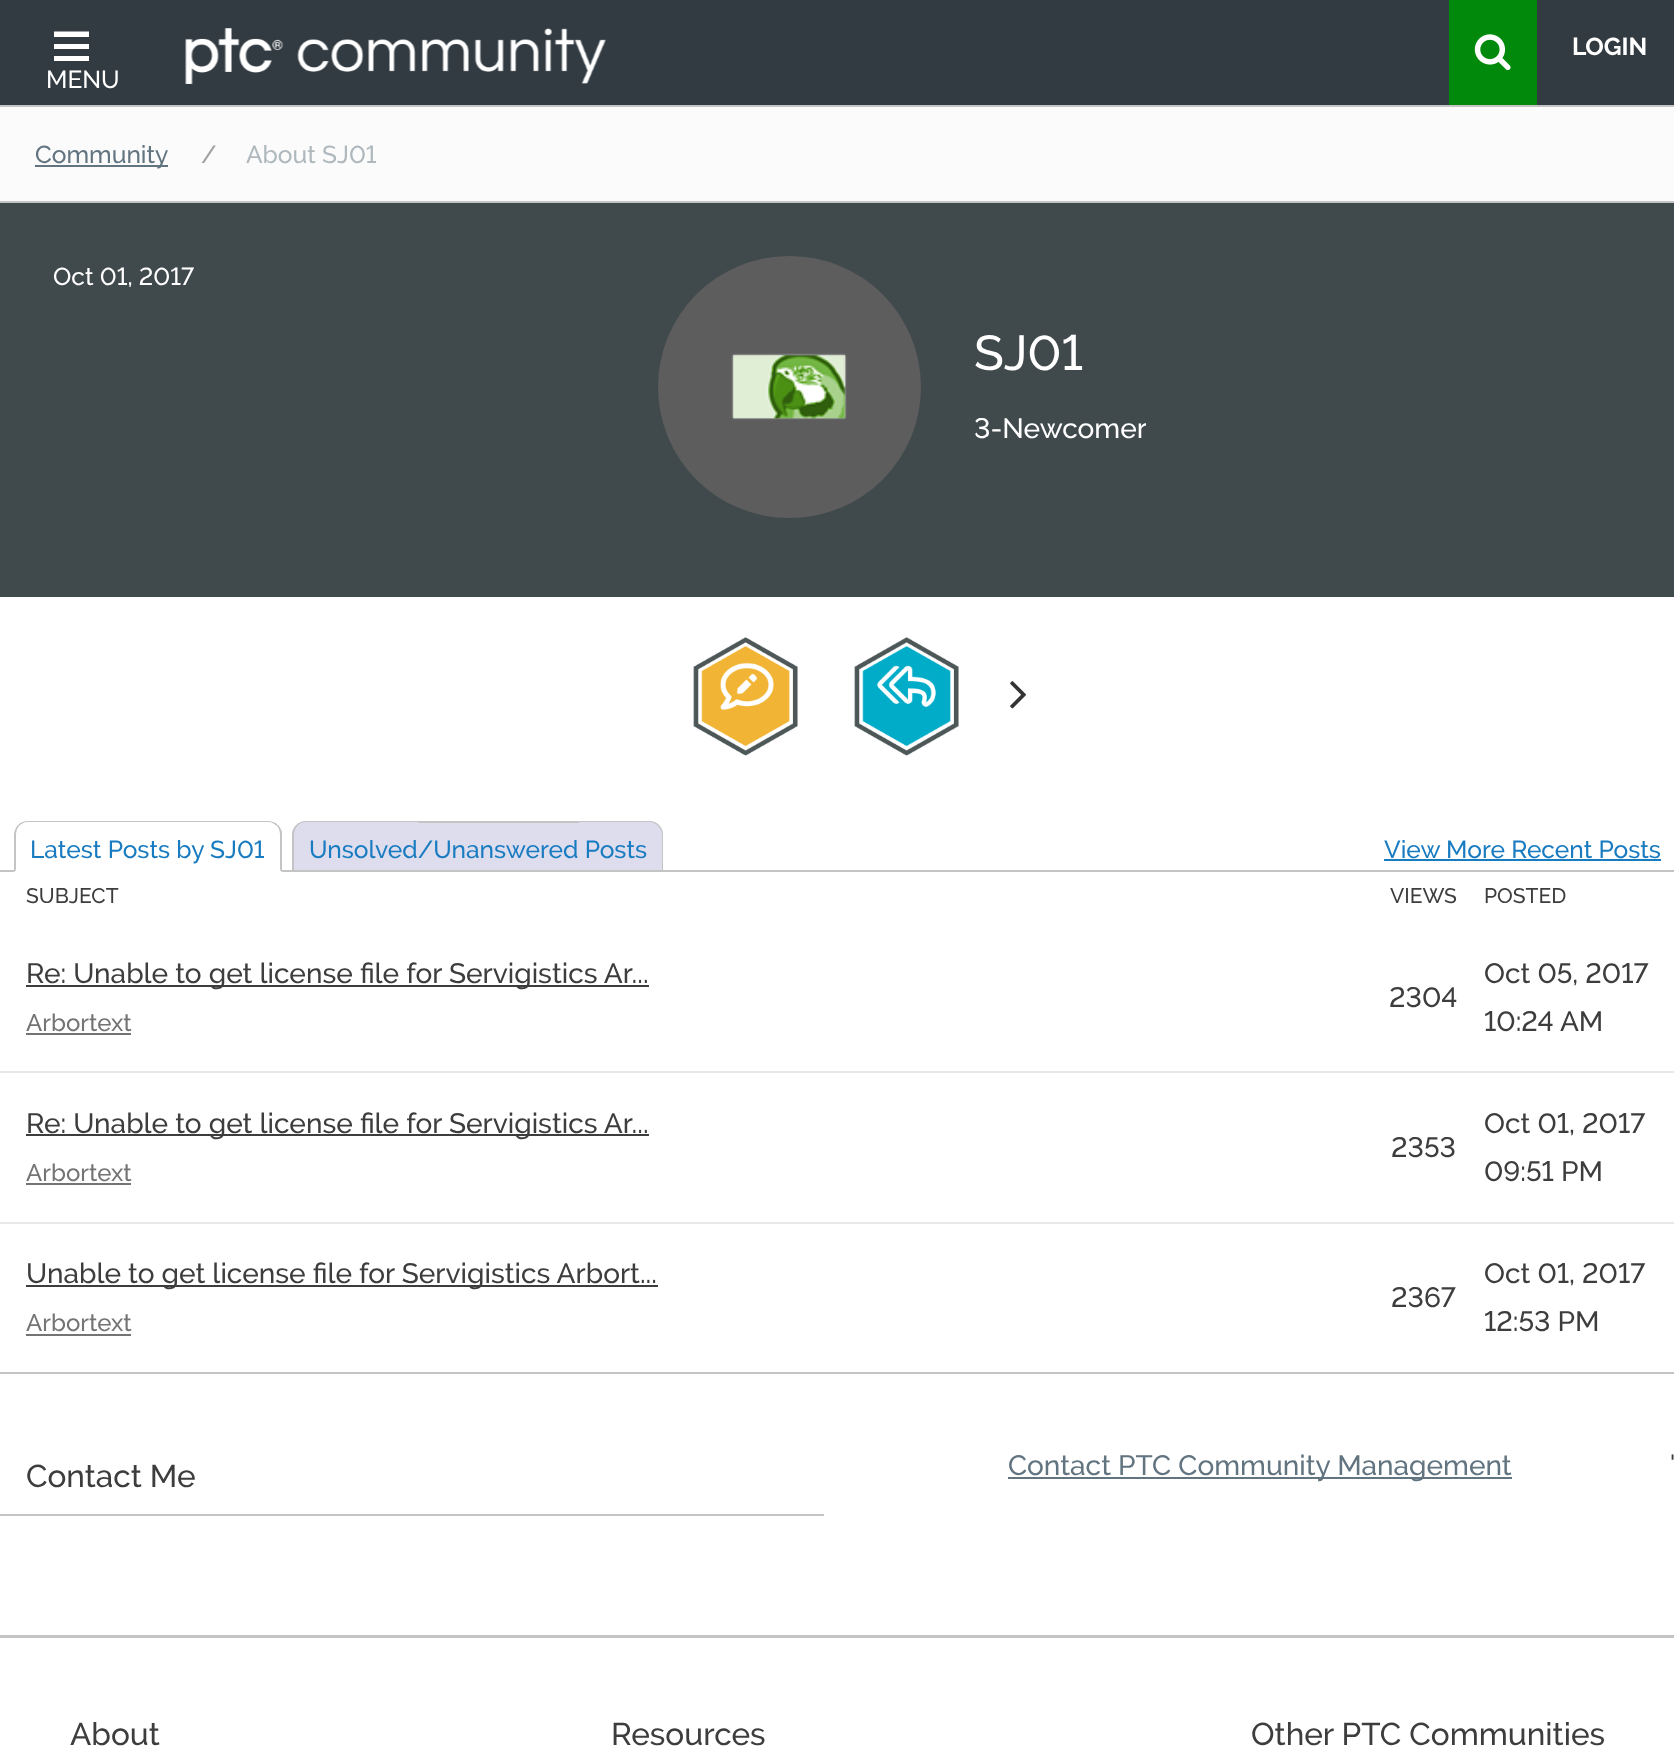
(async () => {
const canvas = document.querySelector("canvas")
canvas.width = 1674
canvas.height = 1759
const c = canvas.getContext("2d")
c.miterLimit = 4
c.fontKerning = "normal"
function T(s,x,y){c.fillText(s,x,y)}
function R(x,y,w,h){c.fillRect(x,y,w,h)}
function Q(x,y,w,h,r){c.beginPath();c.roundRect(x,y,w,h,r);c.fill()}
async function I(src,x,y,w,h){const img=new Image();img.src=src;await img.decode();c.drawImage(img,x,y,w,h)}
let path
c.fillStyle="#fff"
R(0,0,1674,1759)
c.fillStyle="#323b42"
R(0,0,1674,105)
c.fillStyle="#00890b"
R(1449,0,88,105)
await I("1.png",1474,34,37,37)
c.font="bold 24.5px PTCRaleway"
c.fillStyle="#fff"
T("LOGIN",1572,55)
path = new Path2D("M54 31.5h35v5.5h-35zm0 12.5h35v5h-35zm0 12h35v5h-35z")
c.fill(path,"evenodd")
c.font="500 24.5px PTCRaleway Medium"
T("MENU",46,88)
await I("2.png",185,28,421,56)
c.fillStyle="#fbfbfb"
R(0,107,1674,94)
c.fillStyle="#c4c4c4"
R(0,105,1674,2)
R(0,201,1674,2)
c.fillStyle="#617480"
R(35,165,133,2)
T("Community",35,163)
c.fillStyle="#a1a1a1"
T("/",201,163)
c.fillStyle="#aeb8bd"
T("About SJ01",246,163)
c.fillStyle="#40494c"
R(0,203,1674,394)
c.fillStyle="#fff"
T("Oct 01, 2017",53,285)
c.fillStyle="#5d5d5d"
Q(658,256,263,262,131)
c.fillStyle="#c4c4c4"
c.filter="blur(1px)"
c.beginPath()
c.rect(733,355,112,63)
c.fill()
c.filter="none"
await I("3.png",733,355,113,64)
c.font="500 49px PTCRaleway Medium"
c.fillStyle="#fff"
T("SJ01",974,370)
c.save()
c.beginPath()
c.rect(973,404,173,49)
c.clip()
c.font="500 28px PTCRaleway Medium"
T("3-Newcomer",974,438)
c.restore()
await I("4.png",693,637,105,119)
await I("5.png",854,637,105,119)
await I("6.png",1010,681,16,28)
c.fillStyle="#c4c4c4"
R(0,870,1674,2)
c.fillStyle="#fff"
c.beginPath()
c.roundRect(14,821,268,51,[14,14,0,0])
c.fill()
c.font="500 24.5px PTCRaleway Medium"
c.fillStyle="#197bc0"
T("Latest Posts by SJ01",30,858)
c.fillStyle="#c4c4c4"
path = new Path2D("M28 821c-4 0-7 1-10 4l1 1c2-2 5-4 9-4h240c4 0 6 2 9 4l1-1c-3-3-7-4-10-4z")
c.fill(path)
path = new Path2D("M278 825c2 2 3 4 4 7v40l-2-2v-35c0-3-1-7-3-9z")
c.fill(path)
path = new Path2D("M14 872l2-2v-35c0-3 1-7 3-9l-1-1c-2 2-4 6-4 10z")
c.fill(path)
c.fillStyle="#dde"
c.beginPath()
c.roundRect(292,821,126,49,[14,0,0,0])
c.fill()
c.fillStyle="#c4c4c4"
path = new Path2D("M306 821h112v49h-126v-35c0-8 7-14 14-14zm0 1h112v48h-124v-35c0-7 5-13 12-13z")
c.fill(path,"evenodd")
c.fillStyle="#dde"
R(418,823,161,47)
c.beginPath()
c.roundRect(579,821,84,49,[0,14,0,0])
c.fill()
c.fillStyle="#c4c4c4"
path = new Path2D("M579 821h70c8 0 14 6 14 14v35h-84zm0 1h70c7 0 13 6 13 13v35h-83z")
c.fill(path,"evenodd")
c.fillStyle="#197bc0"
T("Unsolved/Unanswered Posts",309,858)
c.fillStyle="#c4c4c4"
R(418,821,161,2)
c.fillStyle="#197bc0"
T("View More Recent Posts",1384,858)
R(1384,859,277,2)
c.fillStyle="#c4c4c4"
R(0,1372,1674,2)
c.font="500 21px PTCRaleway Medium"
c.fillStyle="#3d3d3d"
T("SUBJECT",26,903)
T("VIEWS",1390,903)
T("POSTED",1484,903)
R(26,985,623,2)
c.font="500 28px PTCRaleway Medium"
T("Re: Unable to get license file for Servigistics Ar...",26,983)
c.font="500 24px PTCRaleway Medium"
c.fillStyle="#747474"
T("Arbortext",26,1031)
R(26,1033,105,2)
c.font="500 28px PTCRaleway Medium"
c.fillStyle="#3d3d3d"
T("2304",1389,1007)
T("Oct 05, 2017",1484,983)
T("10:24 AM",1484,1031)
R(26,1134,623,2)
T("Re: Unable to get license file for Servigistics Ar...",26,1133)
c.font="500 24px PTCRaleway Medium"
c.fillStyle="#747474"
T("Arbortext",26,1181)
R(26,1183,105,2)
c.font="500 28px PTCRaleway Medium"
c.fillStyle="#3d3d3d"
T("2353",1391,1157)
c.fillStyle="#e8e8e8"
R(0,1071,1674,2)
c.fillStyle="#3d3d3d"
T("Oct 01, 2017",1484,1133)
T("09:51 PM",1484,1181)
R(26,1285,632,2)
T("Unable to get license file for Servigistics Arbort...",26,1283)
c.font="500 24px PTCRaleway Medium"
c.fillStyle="#747474"
T("Arbortext",26,1331)
R(26,1334,105,2)
c.font="500 28px PTCRaleway Medium"
c.fillStyle="#3d3d3d"
T("2367",1391,1307)
c.fillStyle="#e8e8e8"
R(0,1222,1674,2)
c.fillStyle="#3d3d3d"
T("Oct 01, 2017",1484,1283)
T("12:53 PM",1484,1331)
c.fillStyle="#617480"
R(1008,1477,504,2)
T("Contact PTC Community Management",1008,1475)
c.font="500 24.5px PTCRaleway Medium"
c.fillStyle="#3d3d3d"
T("'",1670,1472)
c.fillStyle="#c4c4c4"
R(0,1514,824,2)
c.font="500 31.5px PTCRaleway Medium"
c.fillStyle="#3d3d3d"
T("Contact Me",26,1487)
c.fillStyle="#c4c4c4"
R(0,1635,1674,3)
c.fillStyle="#3d3d3d"
T("About",70,1745)
T("Resources",611,1745)
T("Other PTC Communities",1251,1745)
})()
